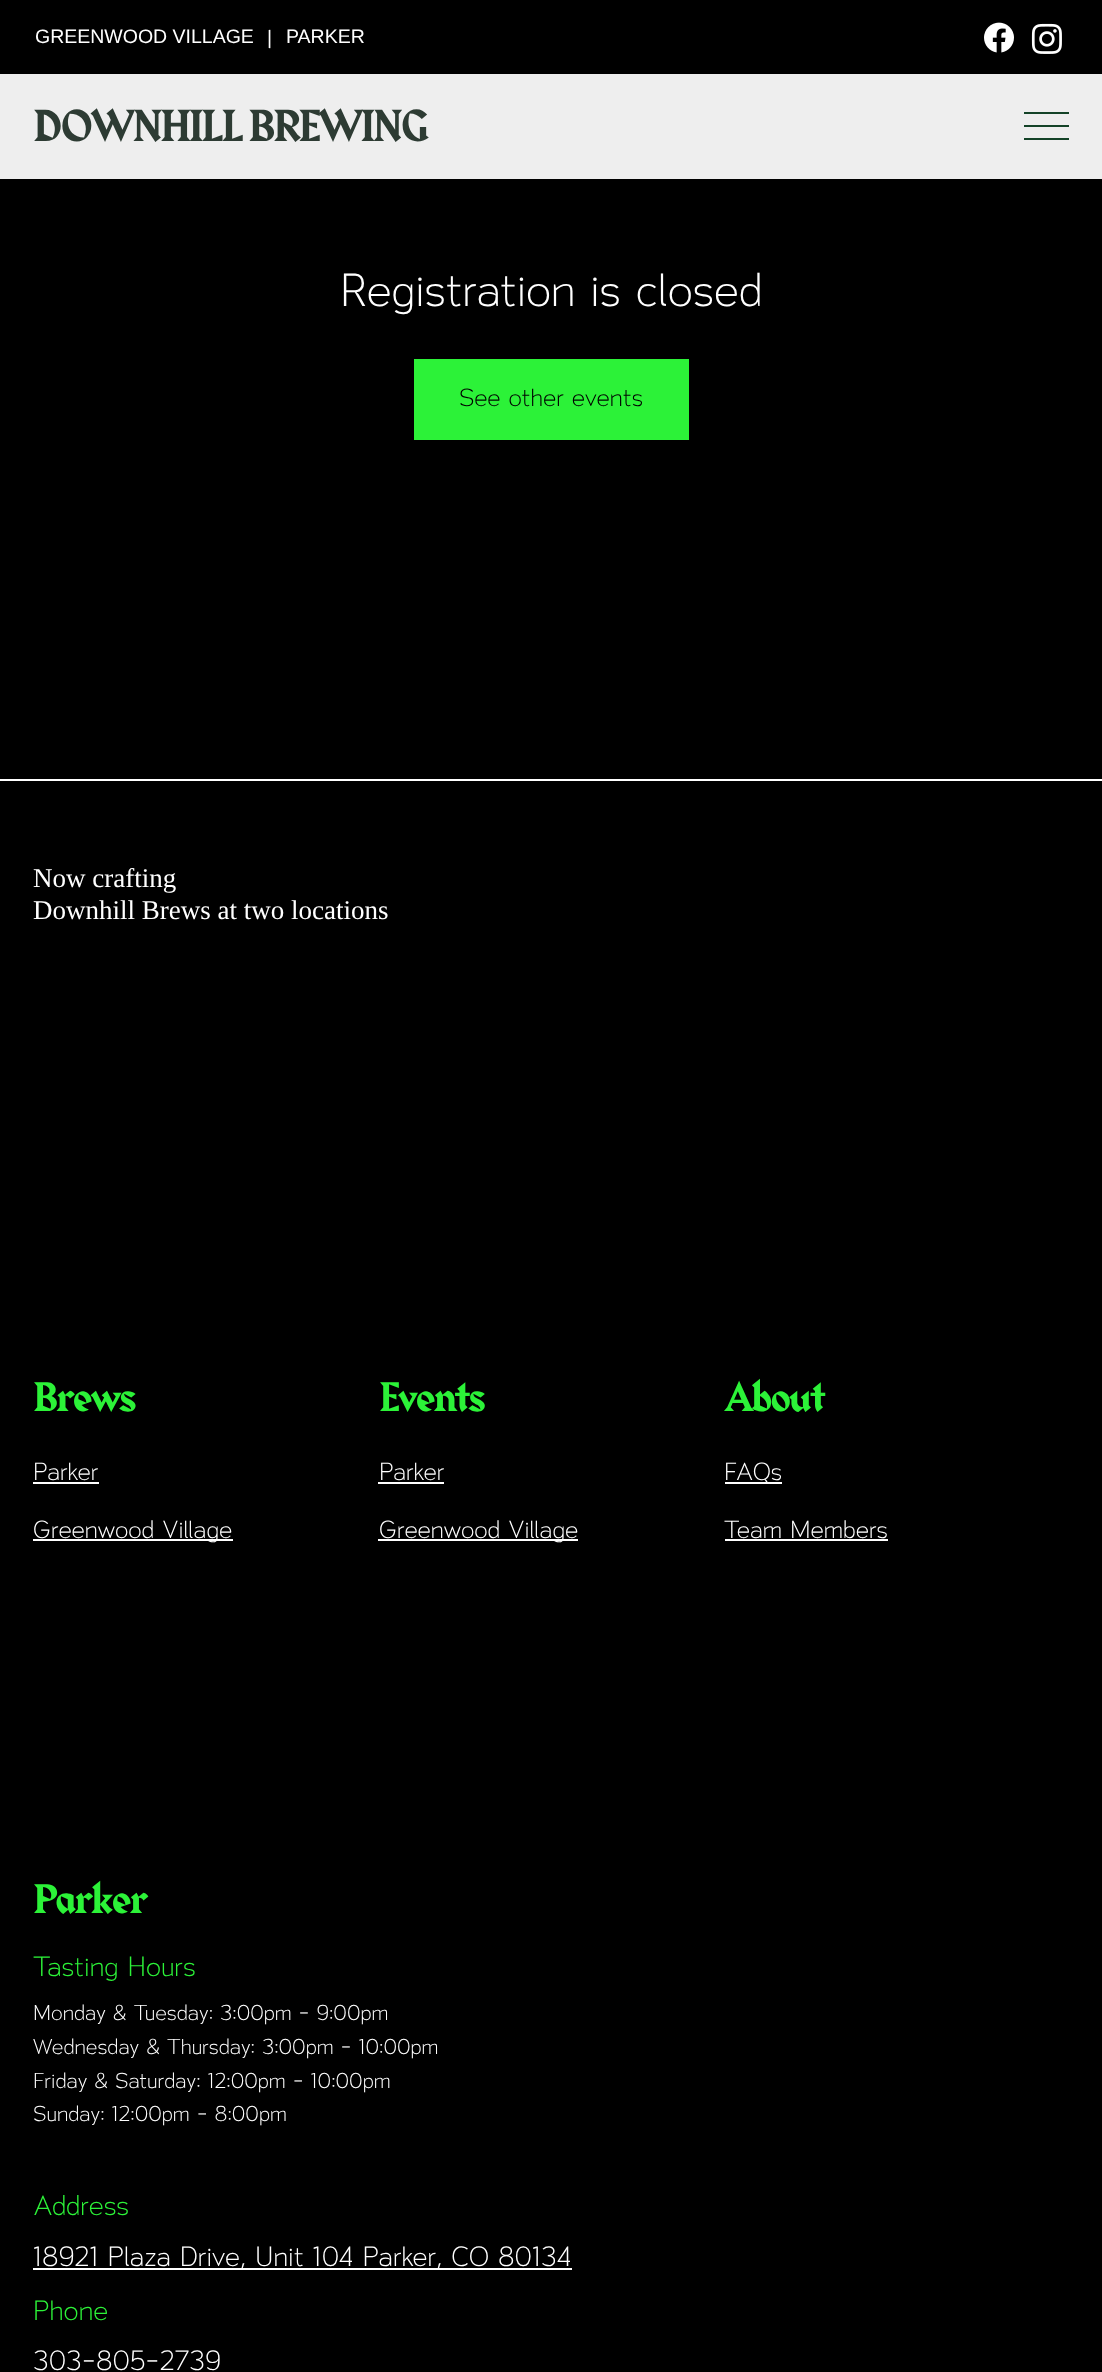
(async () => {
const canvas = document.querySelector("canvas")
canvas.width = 1102
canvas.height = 2372
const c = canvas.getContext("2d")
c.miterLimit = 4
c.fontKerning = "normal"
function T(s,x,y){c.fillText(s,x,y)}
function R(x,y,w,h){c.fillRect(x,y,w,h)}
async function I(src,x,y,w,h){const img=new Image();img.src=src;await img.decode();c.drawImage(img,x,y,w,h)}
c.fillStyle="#000"
R(0,0,1102,2372)
c.font="19.5px Liberation Sans"
c.fillStyle="#fff"
T("GREENWOOD VILLAGE",35,43)
T("|",267,44)
T("PARKER",286,43)
await I("1.png",984,22,30,31)
await I("2.png",1031,23,31,31)
c.fillStyle="#eee"
R(0,74,1102,105)
c.letterSpacing="-3.1px"
c.font="500 39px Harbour"
c.fillStyle="#2d3b33"
T("DOWNHILL BREWING",33,141)
c.fillStyle="#144328"
R(1024,112,45,2)
R(1024,125,45,2)
R(1024,138,45,2)
c.letterSpacing="0px"
c.font="200 45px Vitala"
c.fillStyle="#fff"
T("Registration is closed",340,306)
c.fillStyle="#2cf238"
R(414,359,275,81)
c.font="200 24px Vitala"
c.fillStyle="#000"
T("See other events",459,406)
c.fillStyle="#fff"
R(0,779,1102,2)
c.font="27px Liberation Serif"
T("Now crafting",33,887)
T("Downhill Brews at two locations",33,919)
c.letterSpacing="-3px"
c.font="500 36px Harbour"
c.fillStyle="#2cf238"
T("Brews",33,1411)
c.letterSpacing="0px"
c.font="200 24px Vitala"
c.fillStyle="#fff"
T("Parker",33,1480)
R(33,1482,66,2)
R(33,1539,200,2)
T("Greenwood Village",33,1538)
c.letterSpacing="-3px"
c.font="500 36px Harbour"
c.fillStyle="#2cf238"
T("Events",379,1411)
c.letterSpacing="0px"
c.font="200 24px Vitala"
c.fillStyle="#fff"
T("Parker",379,1480)
R(378,1482,66,2)
R(378,1539,200,2)
T("Greenwood Village",379,1538)
c.letterSpacing="-3px"
c.font="500 36px Harbour"
c.fillStyle="#2cf238"
T("About",724,1411)
c.fillStyle="#fff"
R(725,1482,57,2)
c.letterSpacing="0px"
c.font="200 24px Vitala"
T("FAQs",724,1480)
T("Team Members",724,1538)
R(725,1539,163,2)
c.letterSpacing="-3px"
c.font="500 36px Harbour"
c.fillStyle="#2cf238"
T("Parker",33,1913)
c.letterSpacing="0px"
c.font="200 27px Vitala"
T("Tasting Hours",33,1976)
c.font="200 21px Vitala"
c.fillStyle="#fff"
T("Monday & Tuesday: 3:00pm - 9:00pm",33,2020)
T("Wednesday & Thursday: 3:00pm - 10:00pm",33,2054)
T("Friday & Saturday: 12:00pm - 10:00pm",33,2088)
T("Sunday: 12:00pm - 8:00pm",33,2121)
c.font="200 27px Vitala"
c.fillStyle="#2cf238"
T("Address",33,2215)
c.fillStyle="#fff"
R(33,2268,539,2)
T("18921 Plaza Drive, Unit 104 Parker, CO 80134",33,2266)
c.fillStyle="#2cf238"
T("Phone",33,2320)
c.fillStyle="#fff"
T("303-805-2739",33,2370)
})()
